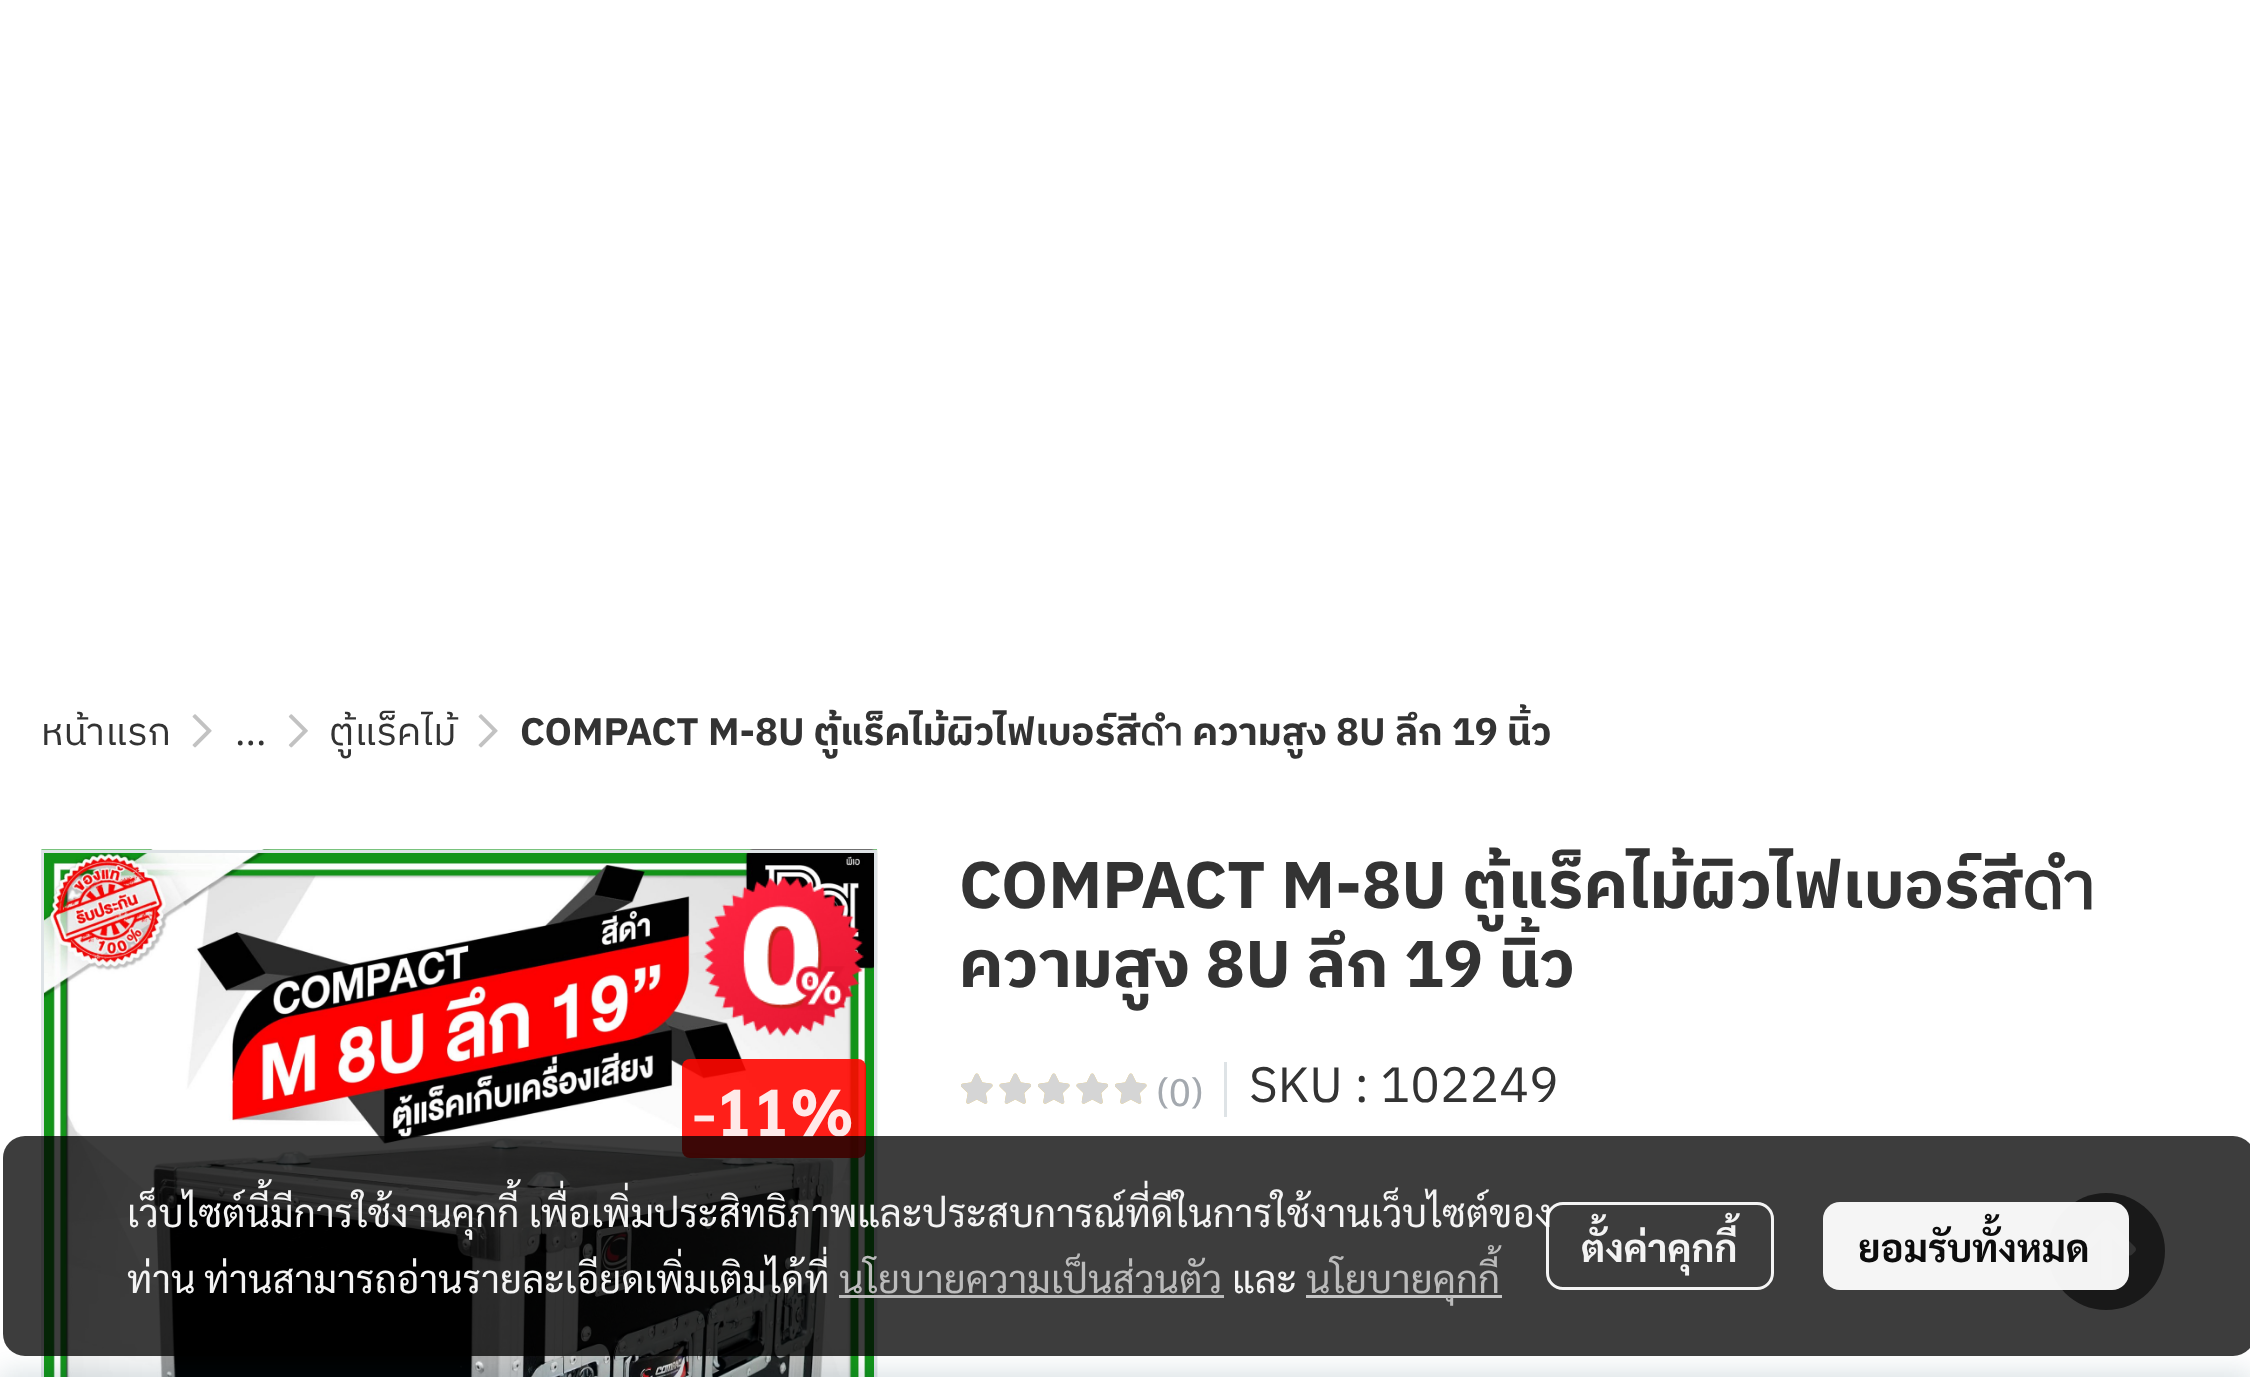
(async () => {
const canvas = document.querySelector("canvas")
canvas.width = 2250
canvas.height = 1377
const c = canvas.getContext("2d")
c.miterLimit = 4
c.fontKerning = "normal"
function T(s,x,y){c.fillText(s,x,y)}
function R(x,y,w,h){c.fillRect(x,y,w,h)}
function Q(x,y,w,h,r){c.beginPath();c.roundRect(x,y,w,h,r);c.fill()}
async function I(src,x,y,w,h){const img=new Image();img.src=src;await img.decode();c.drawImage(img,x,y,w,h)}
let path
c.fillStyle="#fff"
R(0,0,2250,1377)
c.font="38.5px IBM Plex Sans Thai"
c.fillStyle="#333"
T("หน้าแรก",41,745)
await I("1.png",192,714,20,34)
T("...",235,745)
await I("2.png",288,714,20,34)
T("ตู้แร็คไม้",329,745)
await I("1.png",478,714,20,34)
c.save()
c.beginPath()
c.rect(457,704,1097,58)
c.clip()
c.font="bold 38.5px IBM Plex Sans Thai"
T("COMPACT M-8U ตู้แร็คไม้ผิวไฟเบอร์สีดำ ความสูง 8U ลึก 19 นิ้ว",520,745)
c.restore()
await I("3.png",41,849,837,528)
await I("4.png",703,876,161,161)
c.fillStyle="#ff0700e6"
Q(682,1059,184,99,8)
c.strokeStyle="#dee3e6"
c.lineWidth=3
c.strokeRect(42.5,851.5,833,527)
c.font="bold 66px Sarabun"
c.fillStyle="#ffe9e8"
T("-11%",693,1136)
c.font="bold 66px IBM Plex Sans Thai"
c.fillStyle="#333"
T("COMPACT M-8U ตู้แร็คไม้ผิวไฟเบอร์สีดำ",959,908)
T("ความสูง 8U ลึก 19 นิ้ว",959,987)
c.fillStyle="#dee3e6"
R(1224,1062,3,55)
await I("5.png",961,1073,32,31)
await I("6.png",961,1073,32,31)
await I("7.png",999,1073,33,31)
await I("8.png",999,1073,32,31)
await I("5.png",1038,1073,32,31)
await I("6.png",1038,1073,32,31)
await I("7.png",1076,1073,33,31)
await I("8.png",1076,1073,32,31)
await I("5.png",1115,1073,32,31)
await I("6.png",1115,1073,32,31)
c.font="38.5px Sarabun"
c.fillStyle="#a4a9af"
T("(0)",1157,1106)
c.font="49.5px IBM Plex Sans Thai"
c.fillStyle="#333"
T("SKU : 102249",1249,1102)
c.fillStyle="#2b2a2ab3"
path = new Path2D("M2106 1193c-32 0-58 26-58 58c0 33 26 59 58 59c33 0 59-26 59-59c0-32-26-58-59-58z")
c.fill(path)
await I("9.png",2077,1219,59,62)
c.fillStyle="#00354a26"
c.filter="blur(14px)"
c.beginPath()
c.rect(0,1372,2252,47)
c.fill()
c.filter="none"
c.fillStyle="#000000c2"
Q(3,1136,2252,220,22)
c.font="38.5px Sarabun"
c.fillStyle="#f4f4f4"
T("เว็บไซต์นี้มีการใช้งานคุกกี้ เพื่อเพิ่มประสิทธิภาพและประสบการณ์ที่ดีในการใช้งานเว็บไซต์ของ",127,1227)
T("ท่าน",127,1293)
T("ท่านสามารถอ่านรายละเอียดเพิ่มเติมได้ที่",204,1293)
c.fillStyle="#bbb"
T("นโยบายความเป็นส่วนตัว",839,1293)
c.fillStyle="#f4f4f4"
T("และ",1232,1293)
c.fillStyle="#c2c2c2f2"
R(839,1295,385,3)
c.fillStyle="#c5c5c5"
R(1306,1295,196,3)
c.fillStyle="#bbb"
T("นโยบายคุกกี้",1306,1293)
c.beginPath()
c.roundRect(1547.5,1203.5,225,85,15.5)
c.strokeStyle="#fffffff2"
c.stroke()
c.font="bold 38.5px Sarabun"
c.fillStyle="#f4f4f4"
T("ตั้งค่าคุกกี้",1581,1262)
c.fillStyle="#fffffff2"
Q(1823,1202,306,88,17)
c.fillStyle="#0c0c0c"
T("ยอมรับทั้งหมด",1858,1262)
})()
